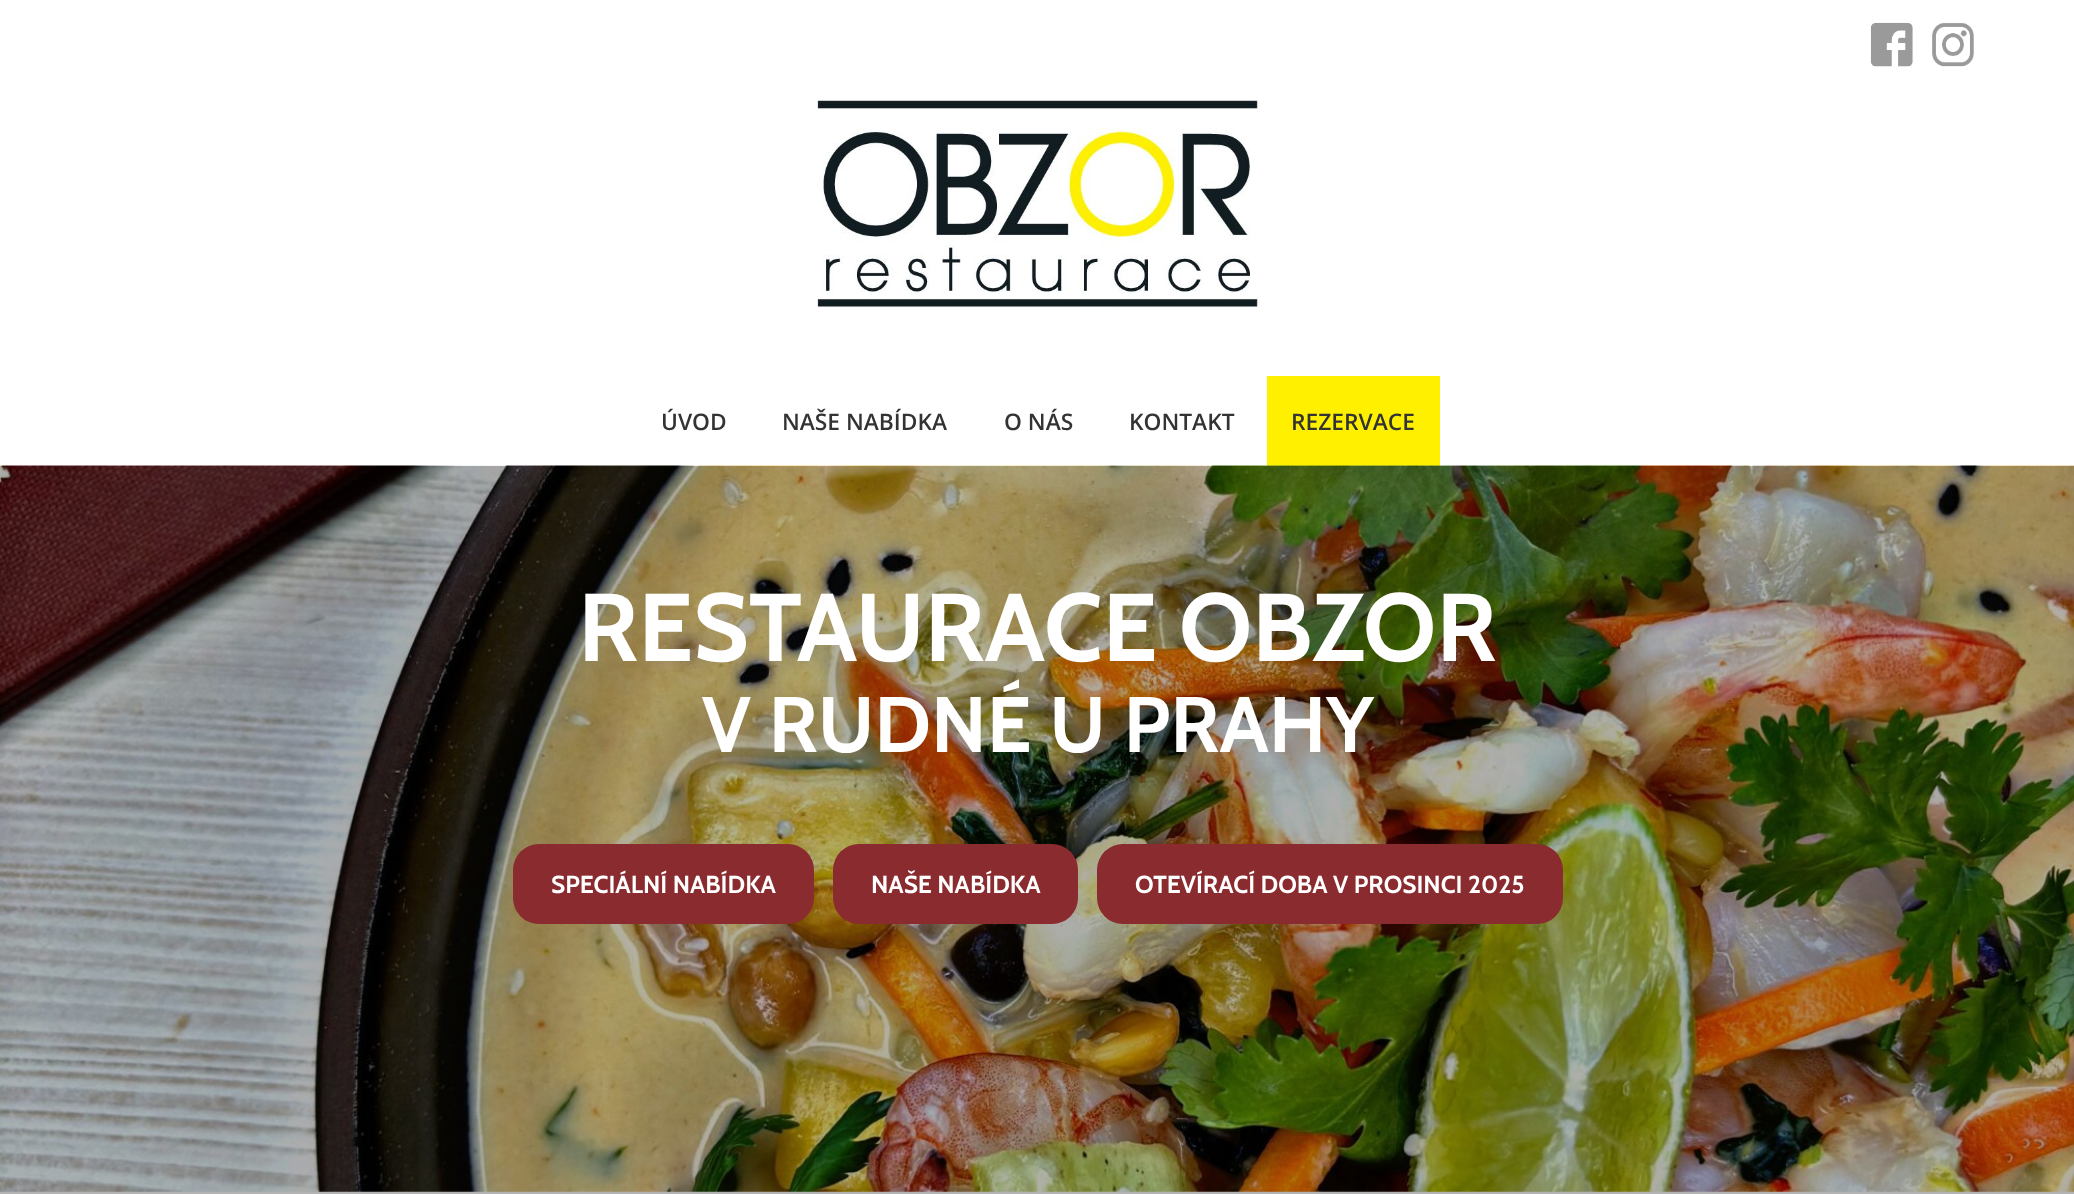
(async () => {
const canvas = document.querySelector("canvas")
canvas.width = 2074
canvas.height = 1194
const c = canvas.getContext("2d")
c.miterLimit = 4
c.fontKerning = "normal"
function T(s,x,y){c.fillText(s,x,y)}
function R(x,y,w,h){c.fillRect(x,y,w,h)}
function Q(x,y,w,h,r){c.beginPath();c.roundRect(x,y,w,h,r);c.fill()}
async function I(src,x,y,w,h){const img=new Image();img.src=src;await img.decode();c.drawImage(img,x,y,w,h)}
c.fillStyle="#fff"
R(0,0,2074,1194)
c.fillStyle="#b3b3b3"
R(0,1191,2074,3)
await I("1.png",1870,22,43,45)
await I("2.png",1932,22,42,45)
await I("3.png",817,100,444,208)
c.font="600 22.75px Open Sans"
c.fillStyle="#333"
T("ÚVOD",661,430)
T("NAŠE NABÍDKA",782,430)
T("O NÁS",1004,430)
T("KONTAKT",1129,430)
c.fillStyle="#fff000"
R(1267,376,173,90)
c.fillStyle="#333"
T("REZERVACE",1291,430)
await I("4.png",0,465,2074,727)
c.font="bold 96.25px Cabin"
c.fillStyle="#fff"
T("RESTAURACE OBZOR",578,661)
c.font="bold 78.75px Cabin"
T("V RUDNÉ U PRAHY",702,752)
c.fillStyle="#8a2b2f"
Q(513,844,301,80,26)
c.font="bold 24.5px Cabin"
c.fillStyle="#fff"
T("SPECIÁLNÍ NABÍDKA",551,893)
c.fillStyle="#8a2b2f"
Q(833,844,245,80,26)
c.fillStyle="#fff"
T("NAŠE NABÍDKA",871,893)
c.fillStyle="#8a2b2f"
Q(1097,844,466,80,26)
c.fillStyle="#fff"
T("OTEVÍRACÍ DOBA V PROSINCI 2025",1135,893)
})()
